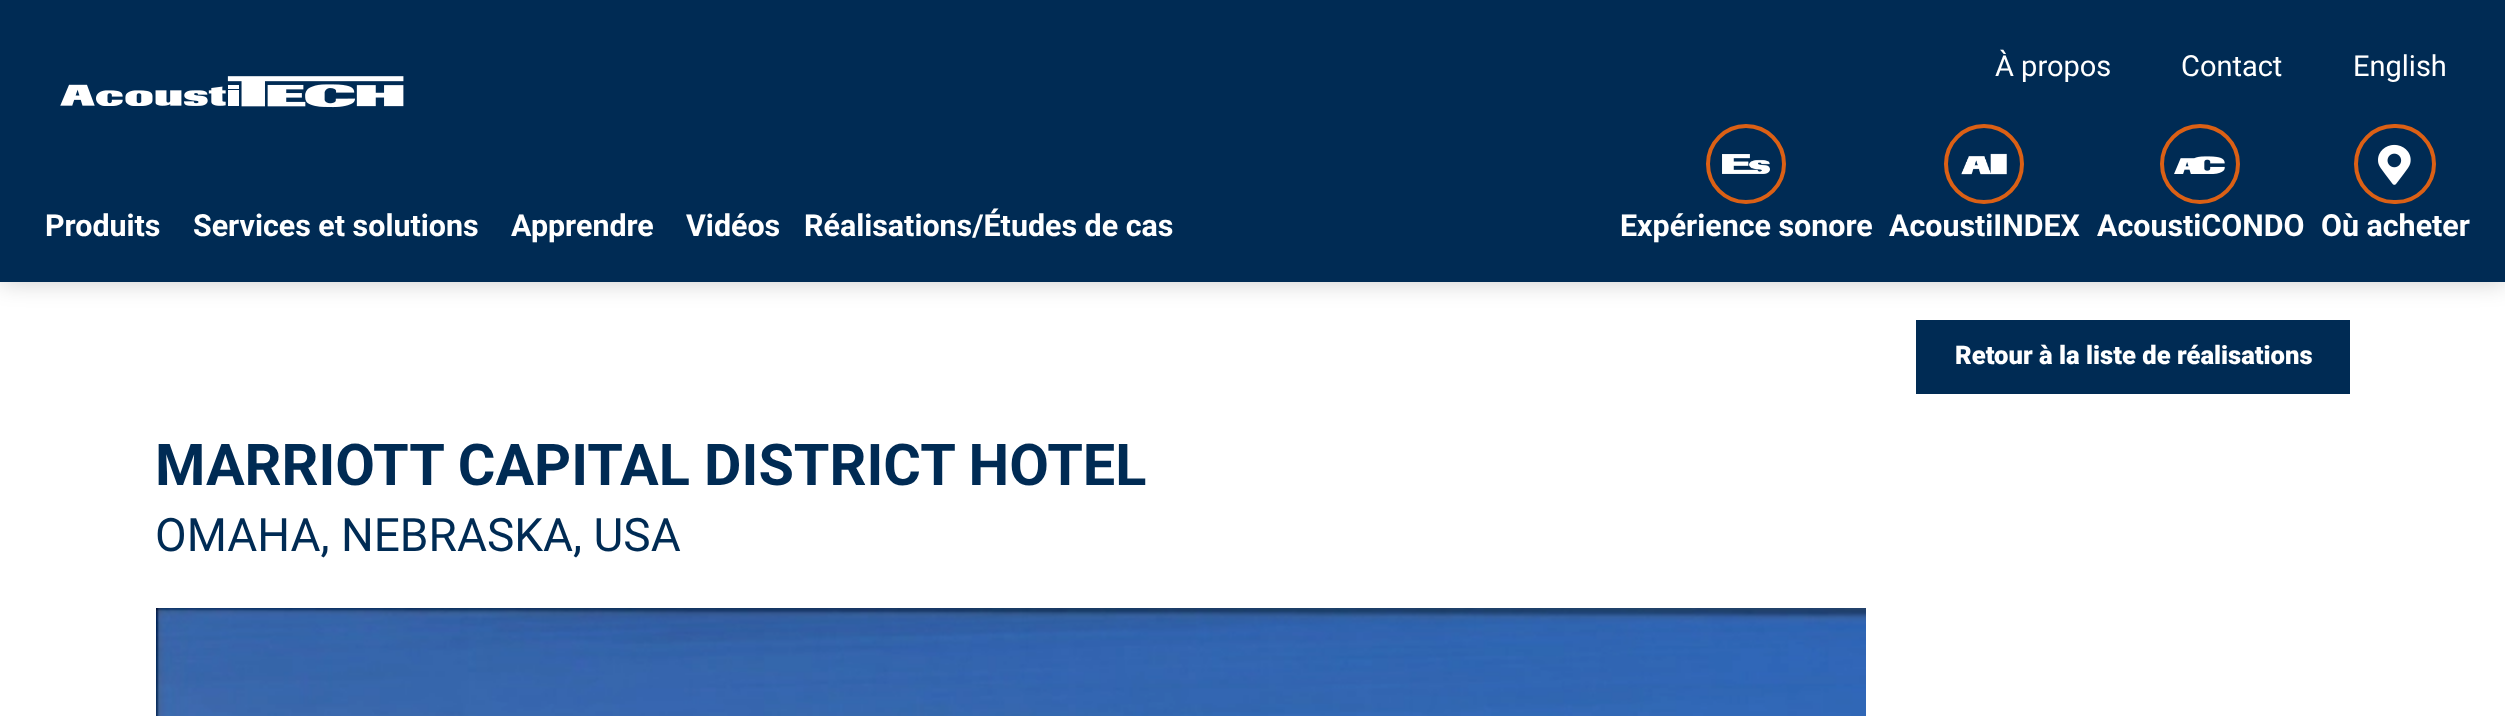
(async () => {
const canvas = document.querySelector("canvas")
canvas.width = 2505
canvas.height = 716
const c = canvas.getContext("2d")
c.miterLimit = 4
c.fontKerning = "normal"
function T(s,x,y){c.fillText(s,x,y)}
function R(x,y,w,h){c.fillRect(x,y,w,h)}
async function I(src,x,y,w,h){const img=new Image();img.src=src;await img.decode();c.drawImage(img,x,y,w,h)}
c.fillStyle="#fff"
R(0,0,2505,716)
c.fillStyle="#00000033"
c.filter="blur(12px)"
c.beginPath()
c.rect(0,0,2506,282)
c.fill()
c.filter="none"
c.fillStyle="#002b54"
R(0,0,2505,282)
c.font="29px Roboto"
c.fillStyle="#fff"
T("À propos",1995,76)
T("Contact",2181,76)
T("English",2353,76)
await I("1.png",60,76,344,32)
c.font="bold 30.4px Roboto"
T("Produits",45,236)
T("Services et solutions",193,236)
T("Apprendre",511,236)
T("Vidéos",686,236)
T("Réalisations/Études de cas",804,236)
await I("2.png",1722,154,48,20)
c.beginPath()
c.arc(1746,164,38,0,7)
c.strokeStyle="#db6015"
c.lineWidth=4
c.stroke()
T("Expérience sonore",1620,236)
await I("3.png",1961,153,46,22)
c.beginPath()
c.arc(1984,164,38,0,7)
c.stroke()
T("AcoustiINDEX",1889,236)
await I("4.png",2174,156,51,18)
c.beginPath()
c.arc(2200,164,38,0,7)
c.stroke()
T("AcoustiCONDO",2097,236)
await I("5.png",2378,144,33,41)
c.beginPath()
c.roundRect(2356,126,78,76,38)
c.stroke()
T("Où acheter",2321,236)
c.fillStyle="#002b54"
R(1916,320,434,74)
c.font="900 25.6px Roboto"
c.fillStyle="#fff"
T("Retour à la liste de réalisations",1955,364)
c.font="bold 57.6px Roboto"
c.fillStyle="#002b54"
T("MARRIOTT CAPITAL DISTRICT HOTEL",155,485)
c.font="46px Roboto"
T("OMAHA, NEBRASKA, USA",155,551)
await I("6.png",156,608,1710,108)
})()
